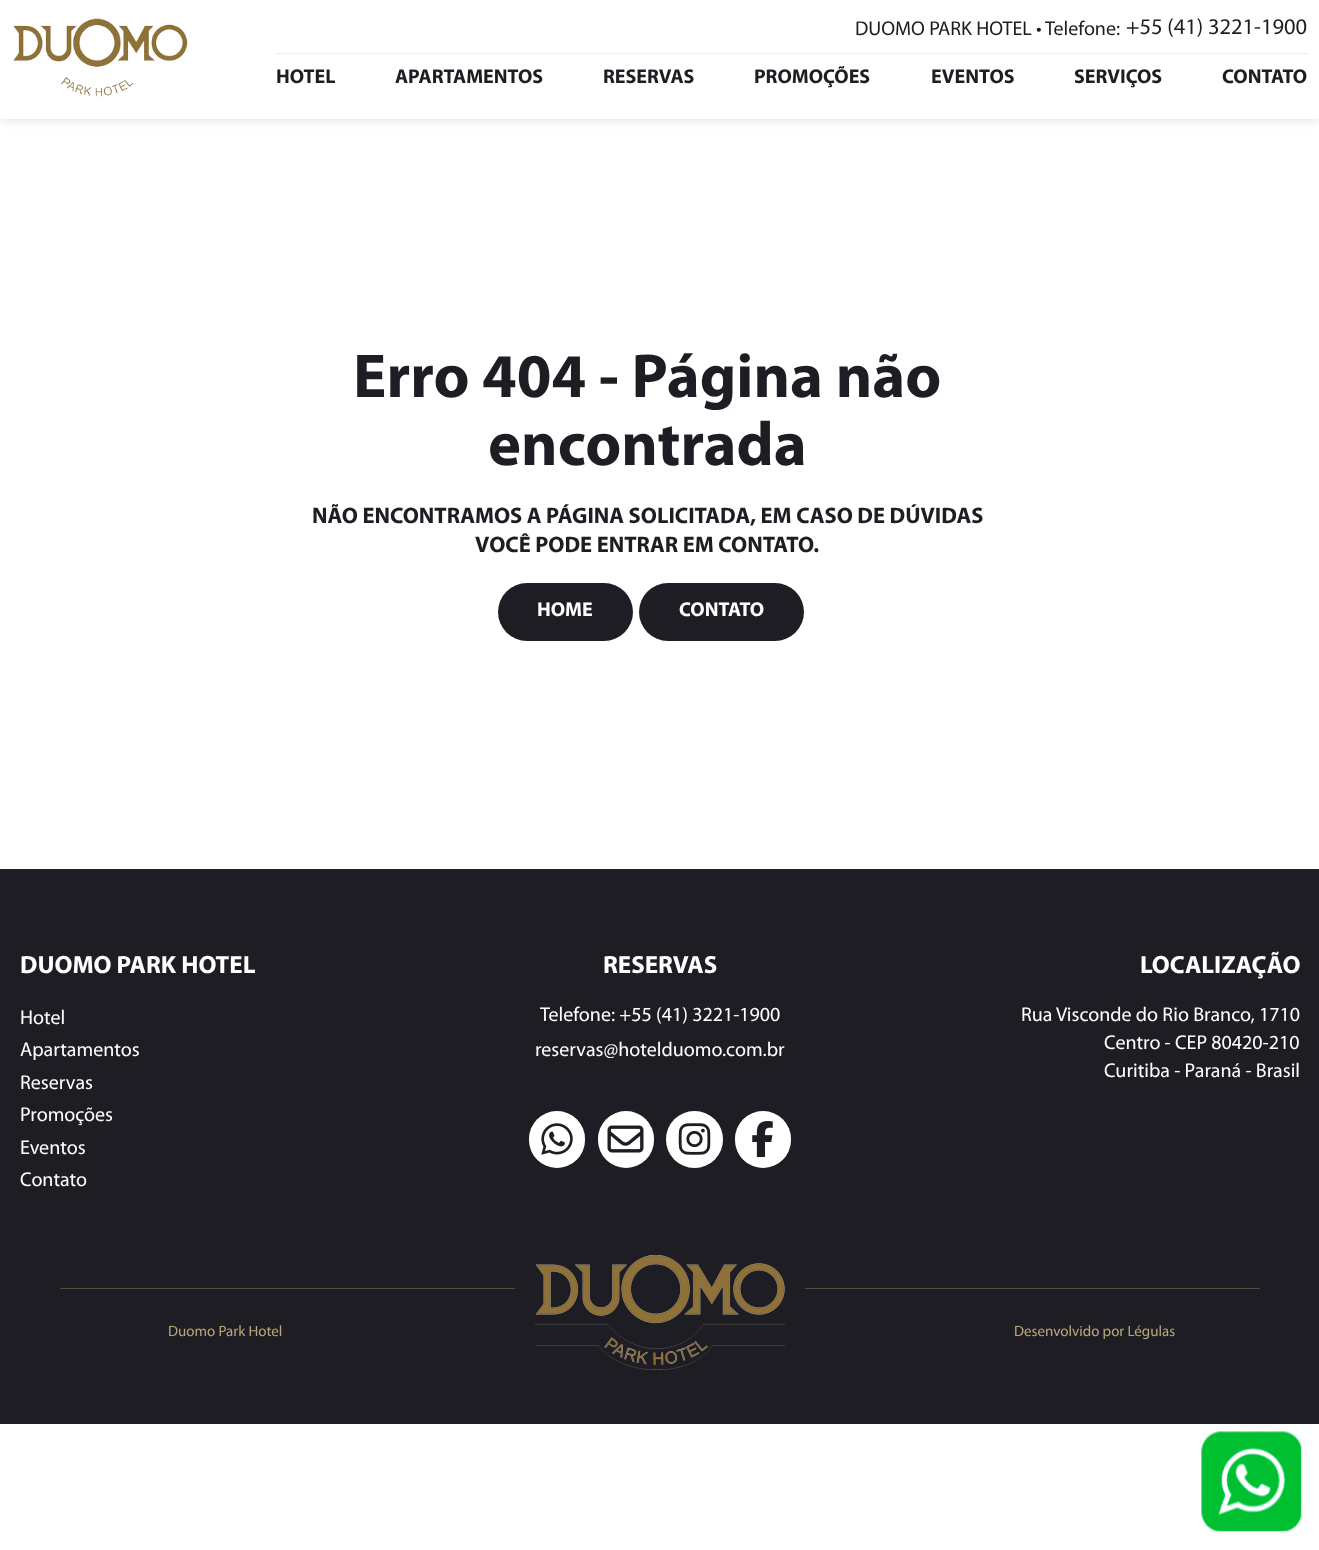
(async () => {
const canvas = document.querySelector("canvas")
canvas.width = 1319
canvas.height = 1550
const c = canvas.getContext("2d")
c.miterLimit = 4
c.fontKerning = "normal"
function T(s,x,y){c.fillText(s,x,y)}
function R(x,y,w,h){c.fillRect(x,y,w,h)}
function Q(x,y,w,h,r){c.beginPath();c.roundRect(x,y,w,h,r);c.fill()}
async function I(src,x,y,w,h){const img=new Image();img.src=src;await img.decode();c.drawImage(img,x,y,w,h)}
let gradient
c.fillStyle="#fff"
R(0,0,1319,1550)
c.fillStyle="#00000026"
c.filter="blur(6px)"
c.beginPath()
c.rect(0,0,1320,119)
c.fill()
c.filter="none"
c.fillStyle="#fff"
R(0,0,1319,119)
await I("1.png",13,18,175,79)
c.fillStyle="#eee"
R(276,53,1032,1)
c.font="20px Myriad"
c.fillStyle="#1e1d23"
T("DUOMO PARK HOTEL • Telefone:",855,35)
c.font="22.5px Myriad"
T("+55 (41) 3221-1900",1126,34)
c.font="bold 20px Myriad"
T("HOTEL",276,83)
T("APARTAMENTOS",395,83)
T("RESERVAS",603,83)
T("PROMOÇÕES",754,83)
T("EVENTOS",931,83)
T("SERVIÇOS",1074,83)
T("CONTATO",1222,83)
c.font="bold 62.5px Myriad"
T("Erro 404 - Página não",353,397)
T("encontrada",488,465)
c.font="bold 22.5px Myriad"
T("NÃO ENCONTRAMOS A PÁGINA SOLICITADA, EM CASO DE DÚVIDAS",312,523)
T("VOCÊ PODE ENTRAR EM CONTATO.",475,552)
gradient = c.createRadialGradient(565,612,0,565,612,184)
gradient.addColorStop(.5,"#1e1d23")
gradient.addColorStop(.5,"#fff")
c.fillStyle = gradient
Q(498,583,135,58,29)
c.font="bold 20px Myriad"
c.fillStyle="#fff"
T("HOME",537,616)
gradient = c.createRadialGradient(721,612,0,721,612,219)
gradient.addColorStop(.5,"#1e1d23")
gradient.addColorStop(.5,"#fff")
c.fillStyle = gradient
Q(639,583,165,58,29)
c.fillStyle="#fff"
T("CONTATO",679,616)
c.fillStyle="#1e1d23"
R(0,869,1319,555)
c.font="bold 25px Myriad"
c.fillStyle="#fff"
T("DUOMO PARK HOTEL",20,973)
c.font="20px Myriad"
T("Hotel",20,1024)
T("Apartamentos",20,1056)
T("Reservas",20,1089)
T("Promoções",20,1121)
T("Eventos",20,1154)
T("Contato",20,1186)
c.font="bold 25px Myriad"
T("RESERVAS",603,973)
c.font="20px Myriad"
T("Telefone: +55 (41) 3221-1900",540,1021)
T("reservas@hotelduomo.com.br",535,1056)
Q(529,1111,56,57,28)
c.beginPath()
c.roundRect(529.5,1111.5,55,56,27.5)
c.strokeStyle="#ffffff33"
c.stroke()
await I("2.png",541,1123,32,32)
Q(598,1111,56,57,28)
c.beginPath()
c.roundRect(598.5,1111.5,55,56,27.5)
c.stroke()
await I("3.png",607,1125,37,28)
c.beginPath()
c.arc(694.5,1139.5,28.5,0,7)
c.fill()
c.beginPath()
c.arc(694.5,1139.5,28,0,7)
c.stroke()
await I("4.png",678,1123,33,32)
Q(735,1111,56,57,28)
c.beginPath()
c.roundRect(735.5,1111.5,55,56,27.5)
c.stroke()
await I("5.png",752,1121,21,36)
c.font="bold 25px Myriad"
T("LOCALIZAÇÃO",1140,973)
c.font="20px Myriad"
T("Rua Visconde do Rio Branco, 1710",1021,1021)
T("Centro - CEP 80420-210",1104,1049)
T("Curitiba - Paraná - Brasil",1104,1077)
c.fillStyle="#514b3f"
R(60,1288,1200,1)
c.fillStyle="#1e1d23"
R(515,1288,290,1)
await I("6.png",535,1255,250,115)
c.font="15px Myriad"
c.fillStyle="#b8a879"
T("Duomo Park Hotel",168,1336)
T("Desenvolvido por Légulas",1014,1336)
await I("7.png",1201,1431,101,101)
})()
